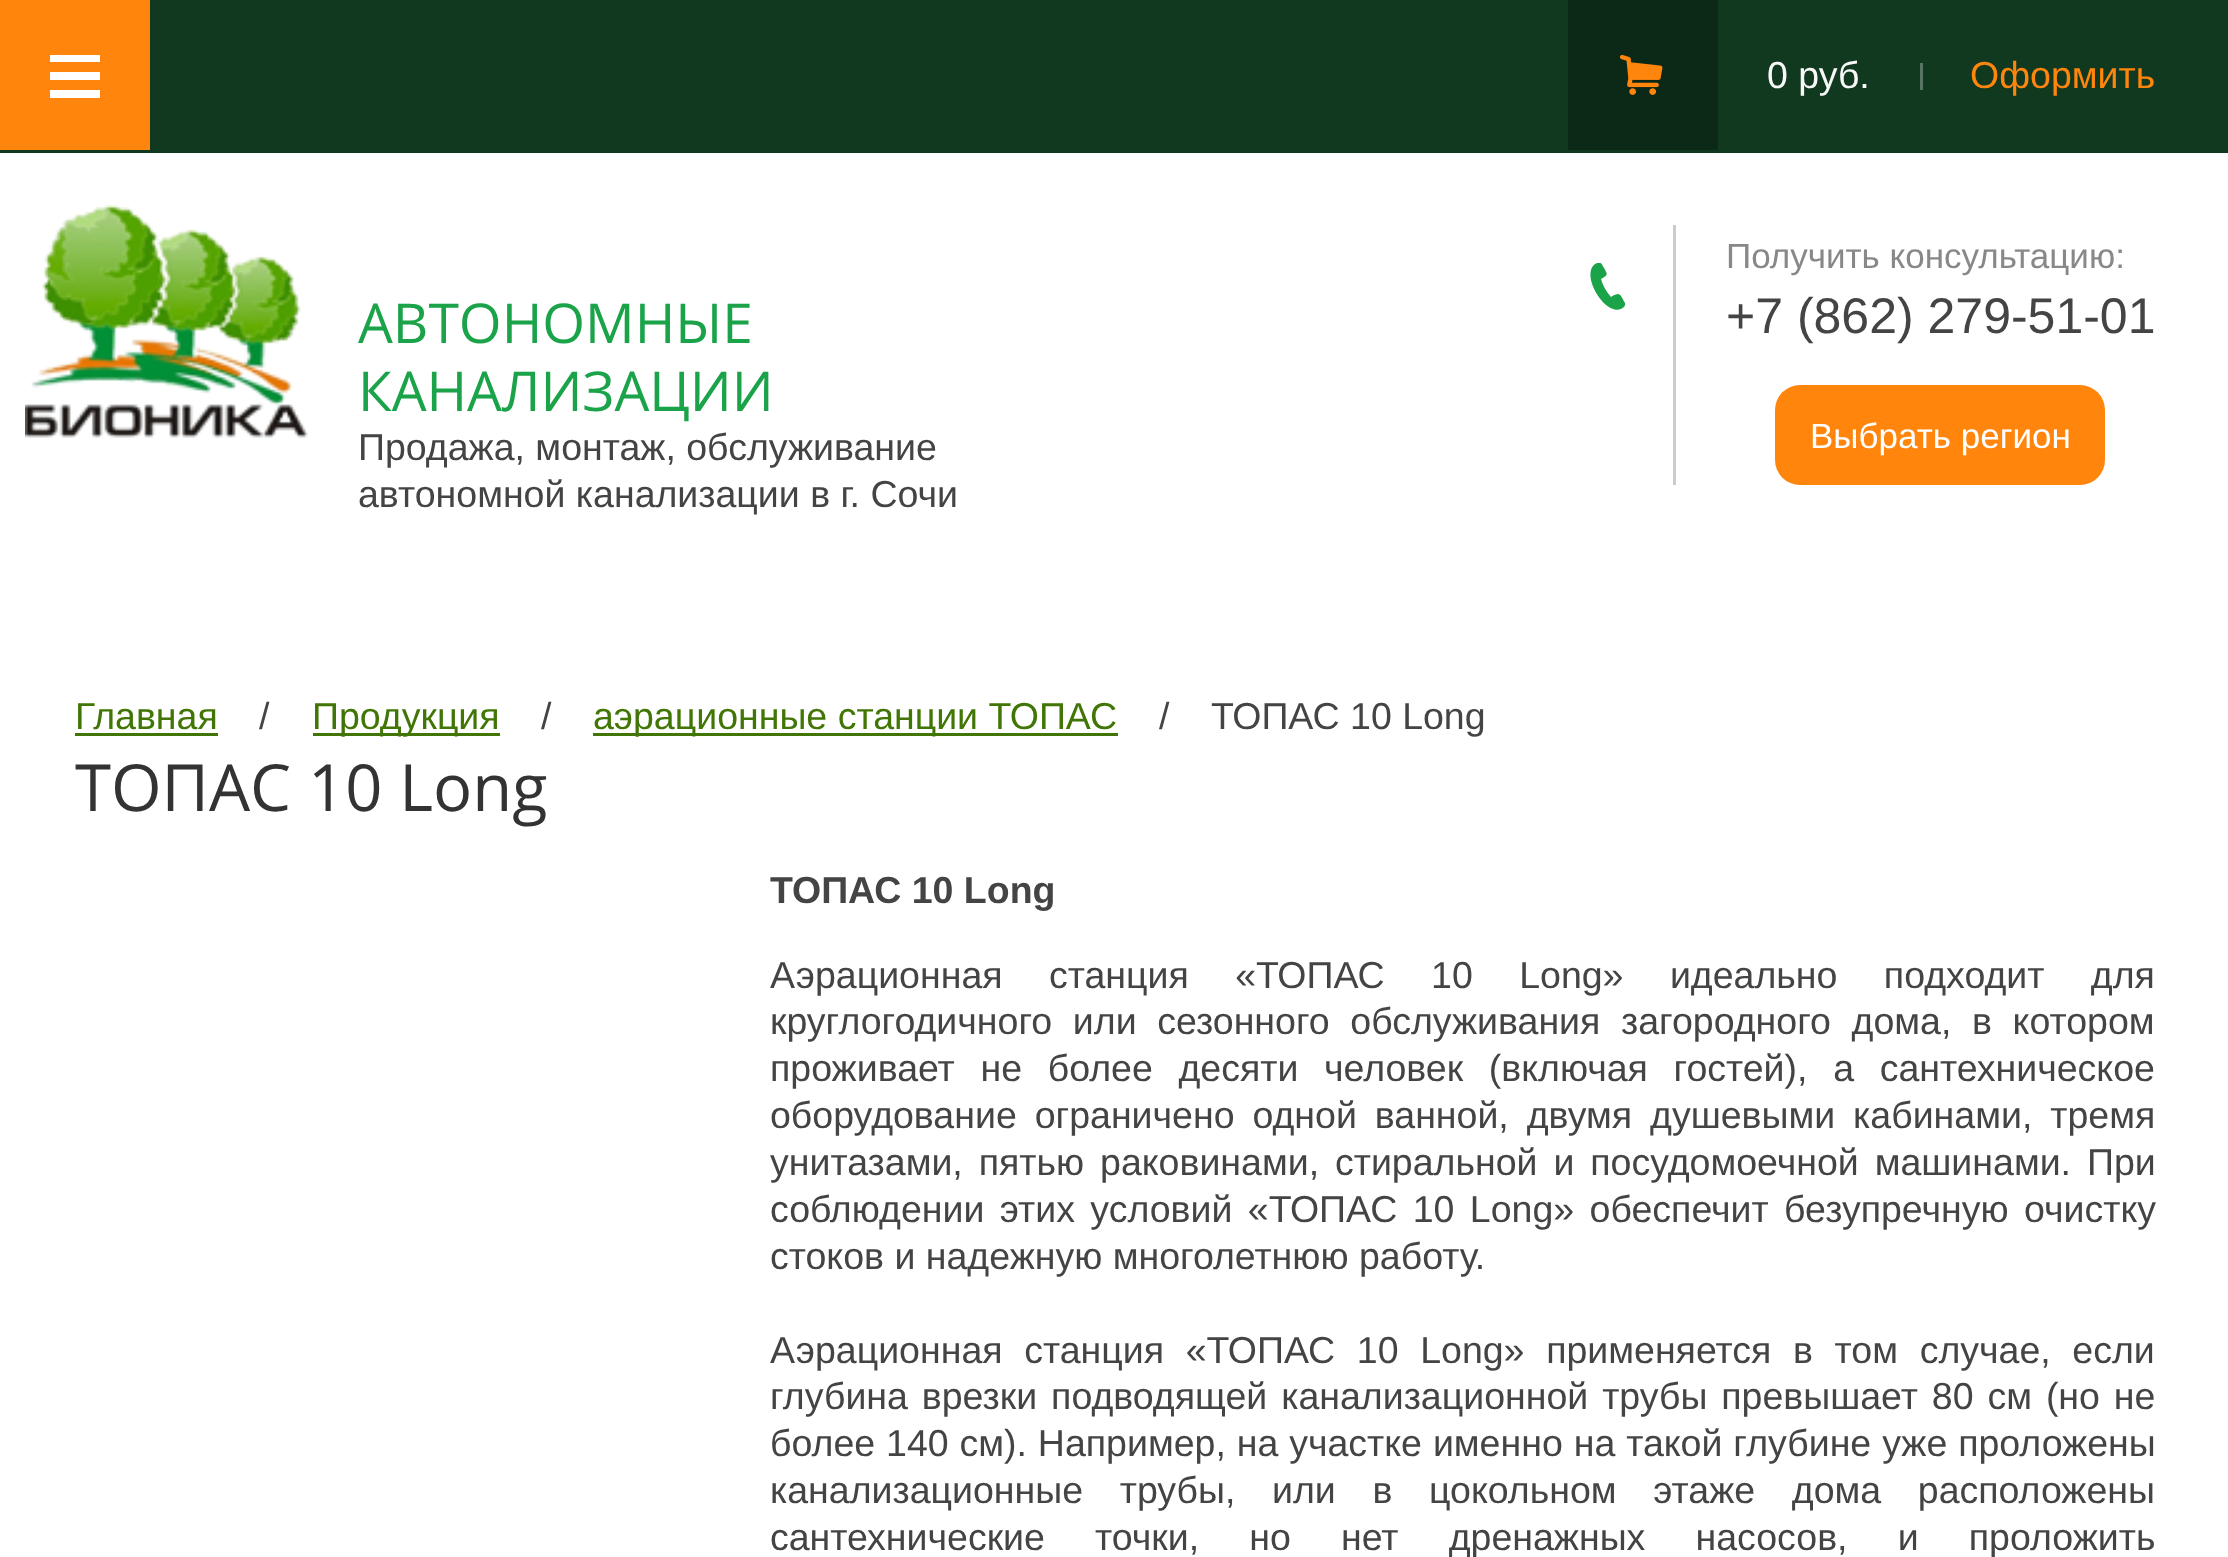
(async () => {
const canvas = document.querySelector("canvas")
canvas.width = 2228
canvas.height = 1557
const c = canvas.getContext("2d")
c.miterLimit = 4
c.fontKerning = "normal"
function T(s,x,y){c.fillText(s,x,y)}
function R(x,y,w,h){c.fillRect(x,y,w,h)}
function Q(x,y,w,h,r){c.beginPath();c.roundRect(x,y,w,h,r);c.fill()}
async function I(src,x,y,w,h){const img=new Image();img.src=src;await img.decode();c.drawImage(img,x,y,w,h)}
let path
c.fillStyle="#fff"
R(0,0,2228,1557)
c.fillStyle="#11391f"
R(0,0,2228,153)
c.fillStyle="#ff850d"
R(0,0,150,150)
c.fillStyle="#fff"
path = new Path2D("M50 98v-8h50v8zm0-26h50v8h-50zm0-17h50v7h-50z")
c.fill(path)
c.fillStyle="#0c2816"
R(1568,0,150,150)
await I("1.png",1620,55,43,40)
c.font="37.5px Liberation Sans"
c.fillStyle="#f8f8f8"
T("0 руб.",1767,88)
c.fillStyle="#587462"
R(1920,63,3,27)
c.fillStyle="#ff850d"
T("Оформить",1970,88)
await I("2.png",25,205,283,233)
c.font="55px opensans"
c.fillStyle="#1ba34a"
T("АВТОНОМНЫЕ",358,343)
T("КАНАЛИЗАЦИИ",358,411)
c.font="37.5px Liberation Sans"
c.fillStyle="#444"
T("Продажа, монтаж, обслуживание",358,460)
T("автономной канализации в г. Сочи",358,507)
c.fillStyle="#ccc"
R(1673,225,3,260)
c.font="35px Liberation Sans"
c.fillStyle="#888"
T("Получить консультацию:",1726,268)
c.save()
c.beginPath()
c.rect(1590,263,35,47)
c.clip()
c.fillStyle="#1ba34a"
path = new Path2D("M1625 303c-5-8-4-12-14-6c-5-6-8-11-10-18c7-4 7-4 3-11c-3-5-3-7-9-4c-15 11 10 52 26 45c2-1 5-3 4-6z")
c.fill(path)
c.restore()
c.font="50px Liberation Sans"
c.fillStyle="#444"
T("+7 (862) 279-51-01",1726,333)
c.fillStyle="#ff850d"
Q(1775,385,330,100,25)
c.font="35px Liberation Sans"
c.fillStyle="#fff"
T("Выбрать регион",1810,448)
c.font="37.5px Liberation Sans"
c.fillStyle="#417505"
T("Главная",75,729)
R(75,733,143,3)
c.fillStyle="#444"
T("/",259,729)
c.fillStyle="#417505"
R(313,733,187,3)
T("Продукция",312,729)
c.fillStyle="#444"
T("/",541,729)
c.fillStyle="#417505"
R(593,733,525,3)
T("аэрационные станции ТОПАС",593,729)
c.fillStyle="#444"
T("/",1159,729)
T("ТОПАС 10 Long",1211,729)
c.font="65px opensans"
c.fillStyle="#333"
T("ТОПАС 10 Long",75,811)
c.font="bold 37.5px Liberation Sans"
c.fillStyle="#444"
T("ТОПАС 10 Long",770,903)
c.wordSpacing="36px"
c.font="37.5px Liberation Sans"
T("Аэрационная станция «ТОПАС 10 Long» идеально подходит для",770,988)
c.wordSpacing="10.25px"
T("круглогодичного или сезонного обслуживания загородного дома, в котором",770,1034)
c.wordSpacing="15.25px"
T("проживает не более десяти человек (включая гостей), а сантехническое",770,1081)
c.wordSpacing="7.5px"
T("оборудование ограничено одной ванной, двумя душевыми кабинами, тремя",770,1128)
c.wordSpacing="5.5px"
T("унитазами, пятью раковинами, стиральной и посудомоечной машинами. При",770,1175)
c.wordSpacing="5px"
T("соблюдении этих условий «ТОПАС 10 Long» обеспечит безупречную очистку",770,1222)
c.wordSpacing="0px"
T("стоков и надежную многолетнюю работу.",770,1269)
c.wordSpacing="11.25px"
T("Аэрационная станция «ТОПАС 10 Long» применяется в том случае, если",770,1363)
c.wordSpacing="3.5px"
T("глубина врезки подводящей канализационной трубы превышает 80 см (но не",770,1409)
c.wordSpacing="0.5px"
T("более 140 см). Например, на участке именно на такой глубине уже проложены",770,1456)
c.wordSpacing="26.25px"
T("канализационные трубы, или в цокольном этаже дома расположены",770,1503)
c.wordSpacing="39.75px"
T("сантехнические точки, но нет дренажных насосов, и проложить",770,1550)
})()
